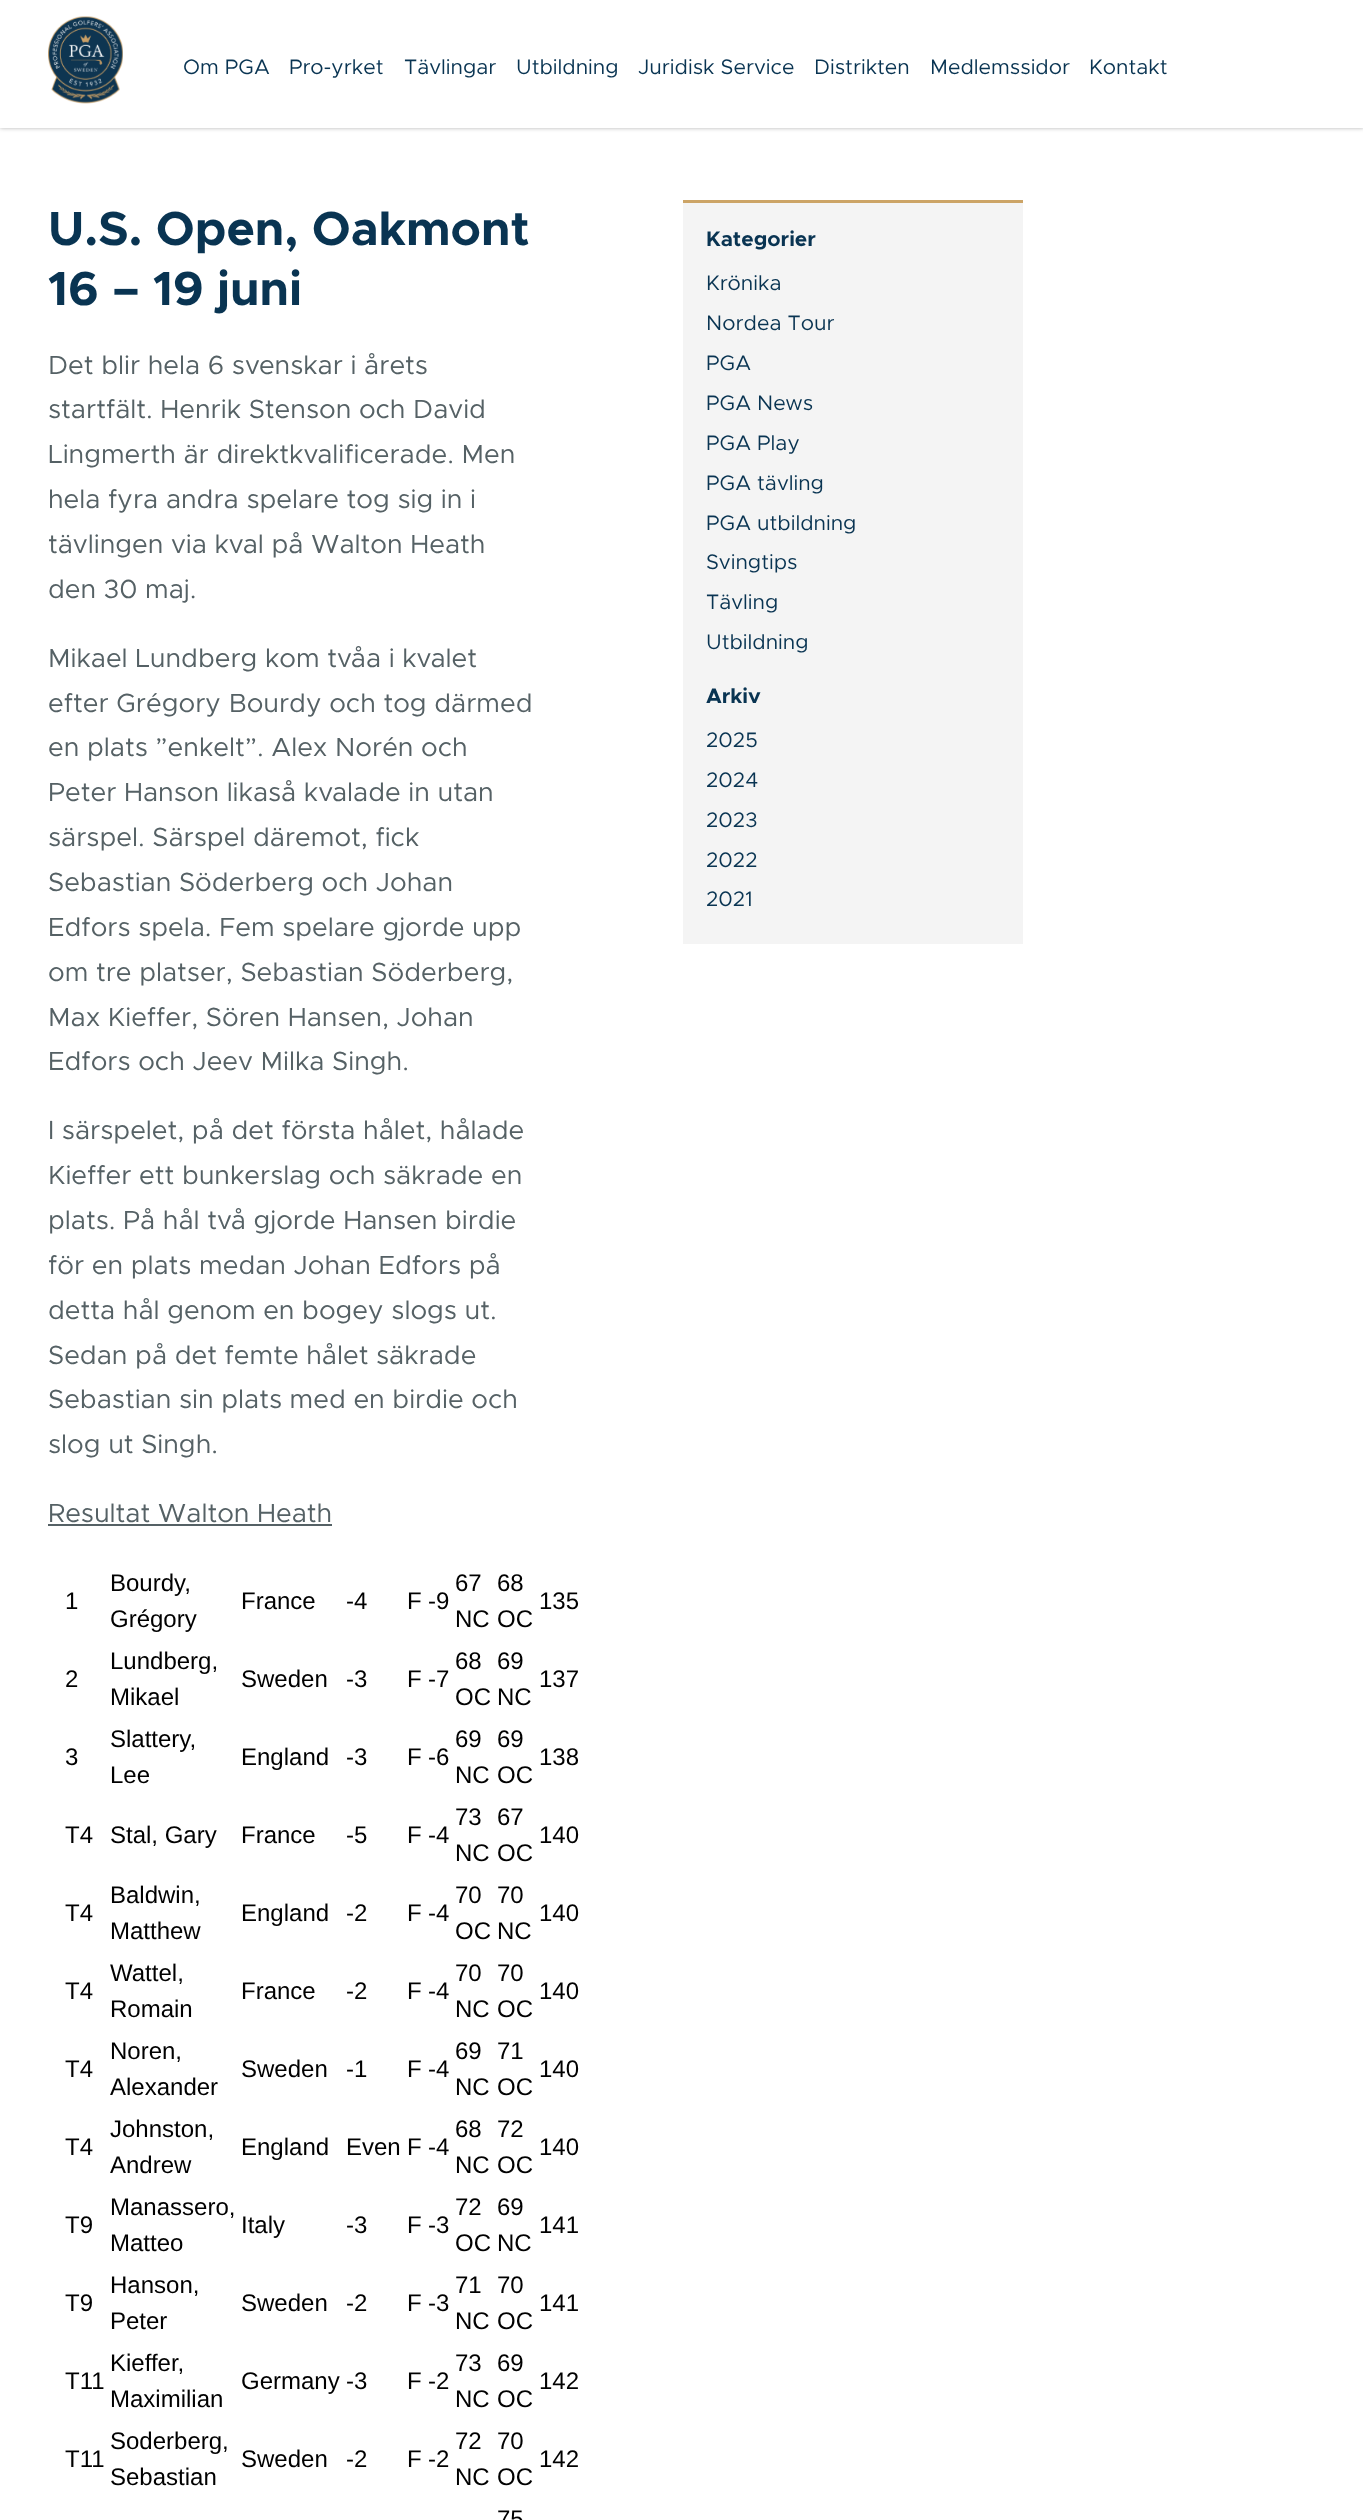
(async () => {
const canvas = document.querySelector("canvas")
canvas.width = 1363
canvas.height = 2520
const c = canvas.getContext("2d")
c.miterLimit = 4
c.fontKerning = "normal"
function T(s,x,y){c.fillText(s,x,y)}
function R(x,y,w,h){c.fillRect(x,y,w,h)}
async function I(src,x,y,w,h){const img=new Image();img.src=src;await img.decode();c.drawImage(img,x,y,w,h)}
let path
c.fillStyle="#fff"
R(0,0,1363,2520)
c.save()
path = new Path2D("M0 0h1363v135h-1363zm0 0h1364v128h-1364z")
c.clip(path,"evenodd")
c.fillStyle="#0000004d"
c.filter="blur(2px)"
c.beginPath()
c.rect(0,0,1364,128)
c.fill()
c.filter="none"
c.restore()
c.fillStyle="#ffffffed"
R(0,127,1363,1)
await I("1.png",48,16,75,88)
c.font="21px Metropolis"
c.fillStyle="#093452"
T("Om PGA",183,74)
T("Pro-yrket",289,74)
T("Tävlingar",404,74)
T("Utbildning",516,74)
T("Juridisk Service",638,74)
T("Distrikten",814,74)
T("Medlemssidor",930,74)
T("Kontakt",1089,74)
c.font="bold 48px Metropolis"
T("U.S. Open, Oakmont",48,245)
T("16 – 19 juni",48,305)
c.font="26.4px Metropolis"
c.fillStyle="#556165"
T("Det blir hela 6 svenskar i årets",48,374)
T("startfält. Henrik Stenson och David",48,418)
T("Lingmerth är direktkvalificerade. Men",48,463)
T("hela fyra andra spelare tog sig in i",48,508)
T("tävlingen via kval på Walton Heath",48,553)
T("den 30 maj.",48,598)
T("Mikael Lundberg kom tvåa i kvalet",48,667)
T("efter Grégory Bourdy och tog därmed",48,712)
T("en plats ”enkelt”. Alex Norén och",48,756)
T("Peter Hanson likaså kvalade in utan",48,801)
T("särspel. Särspel däremot, fick",48,846)
T("Sebastian Söderberg och Johan",48,891)
T("Edfors spela. Fem spelare gjorde upp",48,936)
T("om tre platser, Sebastian Söderberg,",48,981)
T("Max Kieffer, Sören Hansen, Johan",48,1026)
T("Edfors och Jeev Milka Singh.",48,1070)
T("I särspelet, på det första hålet, hålade",48,1139)
T("Kieffer ett bunkerslag och säkrade en",48,1184)
T("plats. På hål två gjorde Hansen birdie",48,1229)
T("för en plats medan Johan Edfors på",48,1274)
T("detta hål genom en bogey slogs ut.",48,1319)
T("Sedan på det femte hålet säkrade",48,1364)
T("Sebastian sin plats med en birdie och",48,1408)
T("slog ut Singh.",48,1453)
T("Resultat Walton Heath",48,1522)
R(48,1524,284,2)
c.font="24px Liberation Sans"
c.fillStyle="#000"
T("1",65,1609)
T("Bourdy,",110,1591)
T("Grégory",110,1627)
T("France",241,1609)
T("-4",346,1609)
T("F",407,1609)
T("-9",428,1609)
T("67",455,1591)
T("NC",455,1627)
T("68",497,1591)
T("OC",497,1627)
T("135",539,1609)
T("2",65,1687)
T("Lundberg,",110,1669)
T("Mikael",110,1705)
T("Sweden",241,1687)
T("-3",346,1687)
T("F",407,1687)
T("-7",428,1687)
T("68",455,1669)
T("OC",455,1705)
T("69",497,1669)
T("NC",497,1705)
T("137",539,1687)
T("3",65,1765)
T("Slattery,",110,1747)
T("Lee",110,1783)
T("England",241,1765)
T("-3",346,1765)
T("F",407,1765)
T("-6",428,1765)
T("69",455,1747)
T("NC",455,1783)
T("69",497,1747)
T("OC",497,1783)
T("138",539,1765)
T("T4",65,1843)
T("Stal, Gary",110,1843)
T("France",241,1843)
T("-5",346,1843)
T("F",407,1843)
T("-4",428,1843)
T("73",455,1825)
T("NC",455,1861)
T("67",497,1825)
T("OC",497,1861)
T("140",539,1843)
T("T4",65,1921)
T("Baldwin,",110,1903)
T("Matthew",110,1939)
T("England",241,1921)
T("-2",346,1921)
T("F",407,1921)
T("-4",428,1921)
T("70",455,1903)
T("OC",455,1939)
T("70",497,1903)
T("NC",497,1939)
T("140",539,1921)
T("T4",65,1999)
T("Wattel,",110,1981)
T("Romain",110,2017)
T("France",241,1999)
T("-2",346,1999)
T("F",407,1999)
T("-4",428,1999)
T("70",455,1981)
T("NC",455,2017)
T("70",497,1981)
T("OC",497,2017)
T("140",539,1999)
T("T4",65,2077)
T("Noren,",110,2059)
T("Alexander",110,2095)
T("Sweden",241,2077)
T("-1",346,2077)
T("F",407,2077)
T("-4",428,2077)
T("69",455,2059)
T("NC",455,2095)
T("71",497,2059)
T("OC",497,2095)
T("140",539,2077)
T("T4",65,2155)
T("Johnston,",110,2137)
T("Andrew",110,2173)
T("England",241,2155)
T("Even",346,2155)
T("F",407,2155)
T("-4",428,2155)
T("68",455,2137)
T("NC",455,2173)
T("72",497,2137)
T("OC",497,2173)
T("140",539,2155)
T("T9",65,2233)
T("Manassero,",110,2215)
T("Matteo",110,2251)
T("Italy",241,2233)
T("-3",346,2233)
T("F",407,2233)
T("-3",428,2233)
T("72",455,2215)
T("OC",455,2251)
T("69",497,2215)
T("NC",497,2251)
T("141",539,2233)
T("T9",65,2311)
T("Hanson,",110,2293)
T("Peter",110,2329)
T("Sweden",241,2311)
T("-2",346,2311)
T("F",407,2311)
T("-3",428,2311)
T("71",455,2293)
T("NC",455,2329)
T("70",497,2293)
T("OC",497,2329)
T("141",539,2311)
T("T11",65,2389)
T("Kieffer,",110,2371)
T("Maximilian",110,2407)
T("Germany",241,2389)
T("-3",346,2389)
T("F",407,2389)
T("-2",428,2389)
T("73",455,2371)
T("NC",455,2407)
T("69",497,2371)
T("OC",497,2407)
T("142",539,2389)
T("T11",65,2467)
T("Soderberg,",110,2449)
T("Sebastian",110,2485)
T("Sweden",241,2467)
T("-2",346,2467)
T("F",407,2467)
T("-2",428,2467)
T("72",455,2449)
T("NC",455,2485)
T("70",497,2449)
T("OC",497,2485)
T("142",539,2467)
T("75",497,2527)
c.fillStyle="#f4f4f4"
R(683,203,340,741)
c.fillStyle="#cca466"
R(683,200,340,3)
c.font="bold 21px Metropolis"
c.fillStyle="#093452"
T("Kategorier",706,246)
c.font="21px Metropolis"
T("Krönika",706,290)
T("Nordea Tour",706,330)
T("PGA",706,370)
T("PGA News",706,410)
T("PGA Play",706,450)
T("PGA tävling",706,490)
T("PGA utbildning",706,530)
T("Svingtips",706,569)
T("Tävling",706,609)
T("Utbildning",706,649)
c.font="bold 21px Metropolis"
T("Arkiv",706,703)
c.font="21px Metropolis"
T("2025",706,747)
T("2024",706,787)
T("2023",706,827)
T("2022",706,867)
T("2021",706,906)
})()
